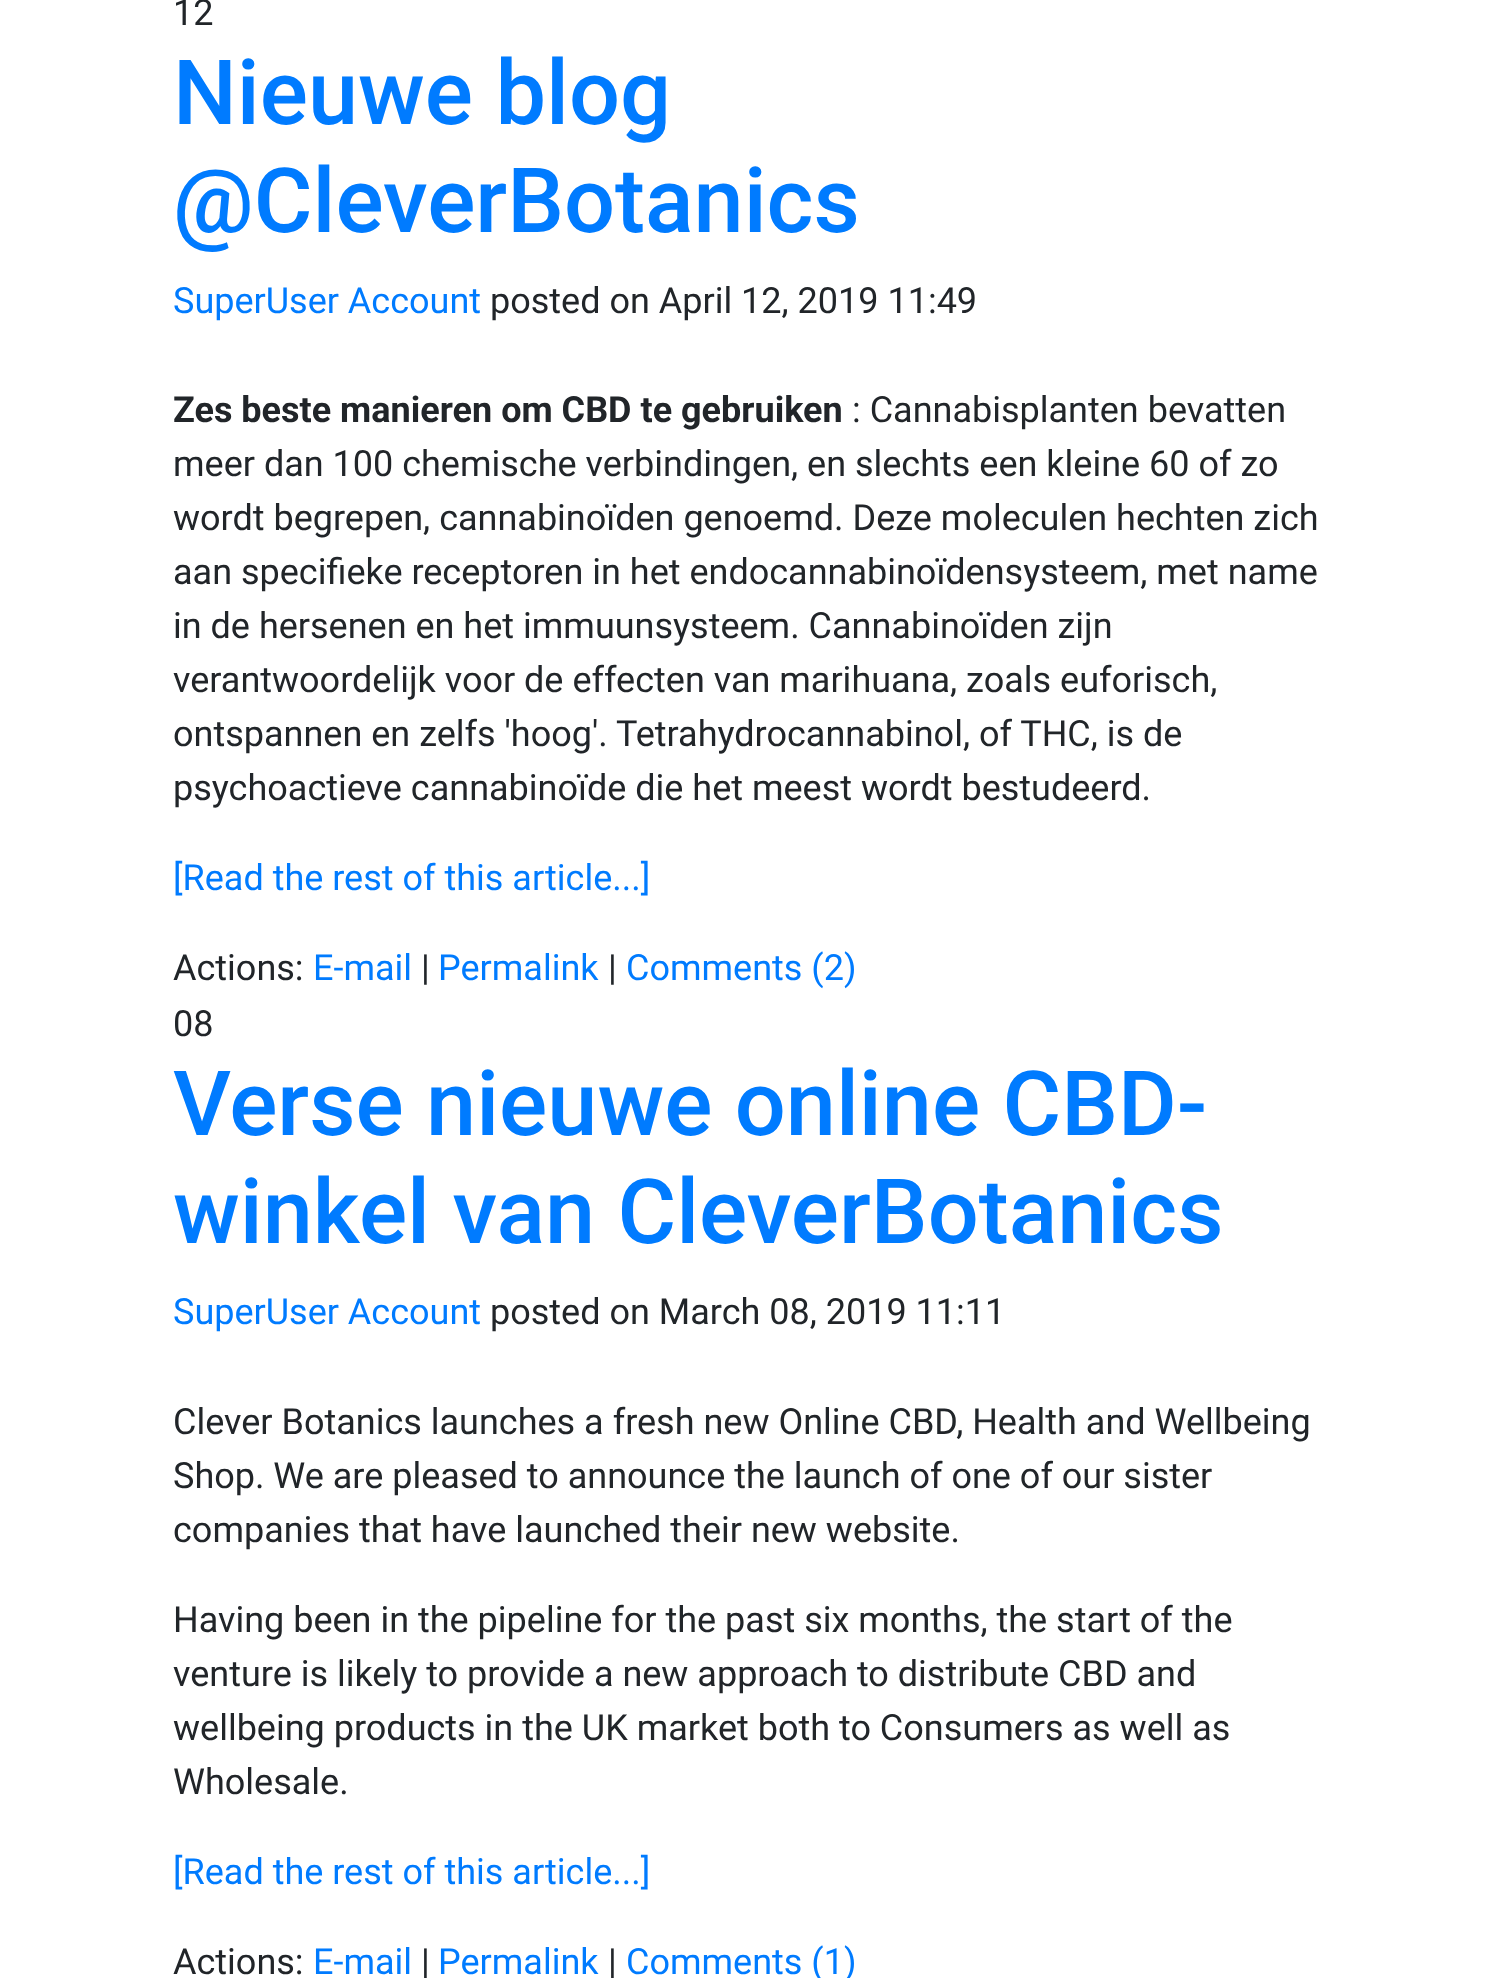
(async () => {
const canvas = document.querySelector("canvas")
canvas.width = 1493
canvas.height = 1978
const c = canvas.getContext("2d")
c.miterLimit = 4
c.fontKerning = "normal"
function T(s,x,y){c.fillText(s,x,y)}
function R(x,y,w,h){c.fillRect(x,y,w,h)}
c.fillStyle="#fff"
R(0,0,1493,1978)
c.font="36px Roboto"
c.fillStyle="#212529"
T("12",173,25)
c.font="500 90px Roboto"
c.fillStyle="#007bff"
T("Nieuwe blog",173,124)
T("@CleverBotanics",173,232)
c.font="36px Roboto"
T("SuperUser Account",173,313)
c.fillStyle="#212529"
T("posted on April 12, 2019 11:49",490,313)
c.font="bold 36px Roboto"
T("Zes beste manieren om CBD te gebruiken",173,422)
c.font="36px Roboto"
T(": Cannabisplanten bevatten",852,422)
T("meer dan 100 chemische verbindingen, en slechts een kleine 60 of zo",173,476)
T("wordt begrepen, cannabinoïden genoemd. Deze moleculen hechten zich",173,530)
T("aan specifieke receptoren in het endocannabinoïdensysteem, met name",173,584)
T("in de hersenen en het immuunsysteem. Cannabinoïden zijn",173,638)
T("verantwoordelijk voor de effecten van marihuana, zoals euforisch,",173,692)
T("ontspannen en zelfs 'hoog'. Tetrahydrocannabinol, of THC, is de",173,746)
T("psychoactieve cannabinoïde die het meest wordt bestudeerd.",173,800)
c.fillStyle="#007bff"
T("[Read the rest of this article...]",173,890)
c.fillStyle="#212529"
T("Actions:",173,980)
c.fillStyle="#007bff"
T("E-mail",313,980)
c.fillStyle="#212529"
T("|",421,980)
c.fillStyle="#007bff"
T("Permalink",438,980)
c.fillStyle="#212529"
T("|",608,980)
c.fillStyle="#007bff"
T("Comments (2)",626,980)
c.fillStyle="#212529"
T("08",173,1036)
c.font="500 90px Roboto"
c.fillStyle="#007bff"
T("Verse nieuwe online CBD-",173,1135)
T("winkel van CleverBotanics",173,1243)
c.font="36px Roboto"
T("SuperUser Account",173,1324)
c.fillStyle="#212529"
T("posted on March 08, 2019 11:11",490,1324)
T("Clever Botanics launches a fresh new Online CBD, Health and Wellbeing",173,1434)
T("Shop. We are pleased to announce the launch of one of our sister",173,1488)
T("companies that have launched their new website.",173,1542)
T("Having been in the pipeline for the past six months, the start of the",173,1632)
T("venture is likely to provide a new approach to distribute CBD and",173,1686)
T("wellbeing products in the UK market both to Consumers as well as",173,1740)
T("Wholesale.",173,1794)
c.fillStyle="#007bff"
T("[Read the rest of this article...]",173,1884)
c.fillStyle="#212529"
T("Actions:",173,1974)
c.fillStyle="#007bff"
T("E-mail",313,1974)
c.fillStyle="#212529"
T("|",421,1974)
c.fillStyle="#007bff"
T("Permalink",438,1974)
c.fillStyle="#212529"
T("|",608,1974)
c.fillStyle="#007bff"
T("Comments (1)",626,1974)
})()
